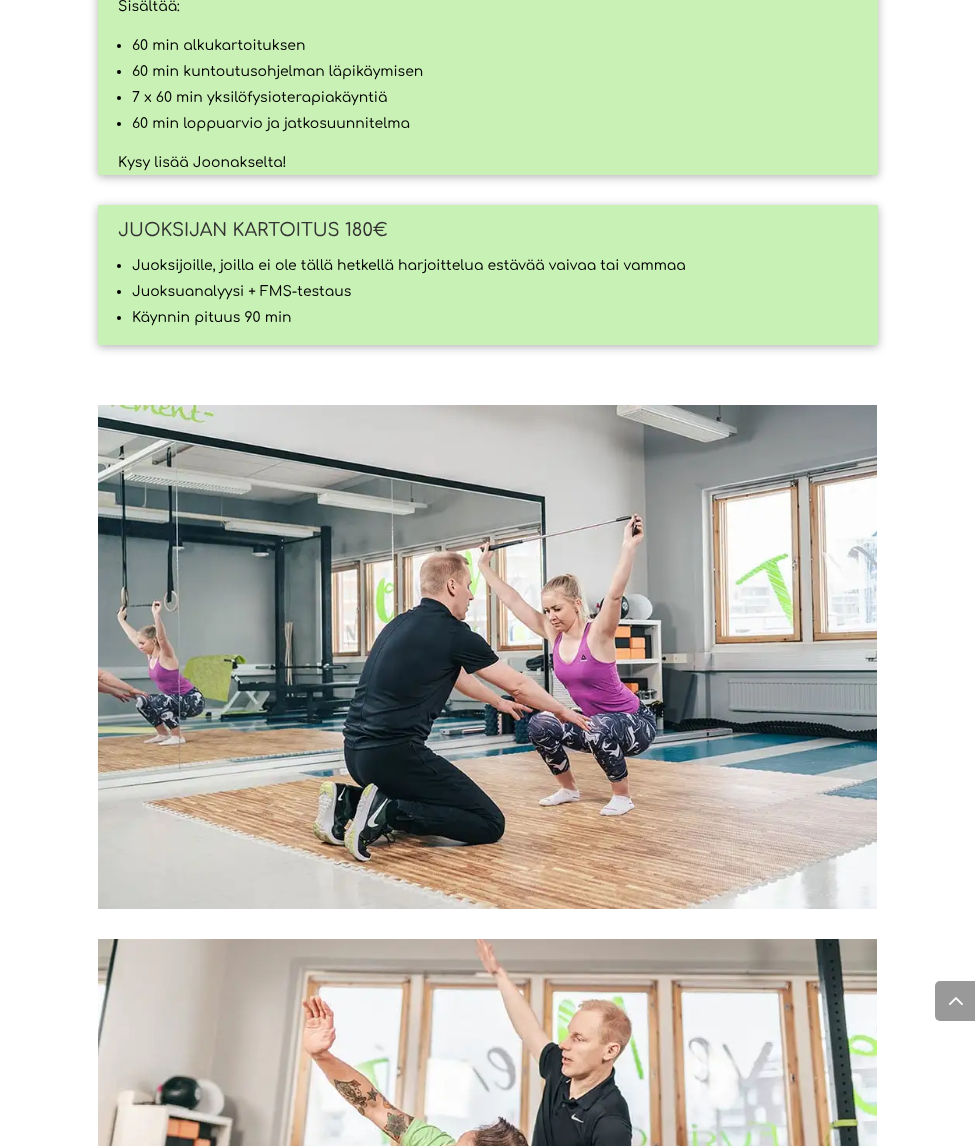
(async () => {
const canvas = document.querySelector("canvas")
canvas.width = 975
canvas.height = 1146
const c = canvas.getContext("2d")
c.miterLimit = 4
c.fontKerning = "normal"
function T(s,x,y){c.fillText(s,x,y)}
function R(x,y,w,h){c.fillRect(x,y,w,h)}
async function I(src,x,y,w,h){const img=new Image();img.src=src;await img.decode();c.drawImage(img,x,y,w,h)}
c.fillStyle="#fff"
R(0,0,975,1146)
c.fillStyle="#0000004d"
c.filter="blur(5px)"
c.beginPath()
c.rect(98,-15,780,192)
c.fill()
c.filter="none"
c.fillStyle="#c9f1b5"
R(98,0,780,175)
c.font="500 14px Comfortaa"
c.fillStyle="#000"
T("Sisältää:",118,11)
c.beginPath()
c.arc(119,46,2,0,7)
c.fill()
T("60 min alkukartoituksen",132,50)
c.beginPath()
c.arc(119,72,2,0,7)
c.fill()
T("60 min kuntoutusohjelman läpikäymisen",132,76)
c.beginPath()
c.arc(119,98,2,0,7)
c.fill()
T("7 x 60 min yksilöfysioterapiakäyntiä",132,102)
c.beginPath()
c.arc(119,124,2,0,7)
c.fill()
T("60 min loppuarvio ja jatkosuunnitelma",132,128)
T("Kysy lisää Joonakselta!",118,167)
c.fillStyle="#0000004d"
c.filter="blur(5px)"
c.beginPath()
c.rect(98,207,780,140)
c.fill()
c.filter="none"
c.fillStyle="#c8f1b5"
R(98,205,780,140)
c.font="500 18px Comfortaa"
c.fillStyle="#333"
T("JUOKSIJAN KARTOITUS 180€",118,236)
c.fillStyle="#000"
c.beginPath()
c.arc(119,266,2,0,7)
c.fill()
c.font="500 14px Comfortaa"
T("Juoksijoille, joilla ei ole tällä hetkellä harjoittelua estävää vaivaa tai vammaa",132,270)
c.beginPath()
c.arc(119,292,2,0,7)
c.fill()
T("Juoksuanalyysi + FMS-testaus",132,296)
c.beginPath()
c.arc(119,318,2,0,7)
c.fill()
T("Käynnin pituus 90 min",132,322)
await I("1.png",98,405,779,504)
await I("2.png",98,939,779,207)
c.fillStyle="#999"
c.beginPath()
c.roundRect(935,981,40,40,[5,0,0,5])
c.fill()
await I("3.png",949,997,14,8)
})()
